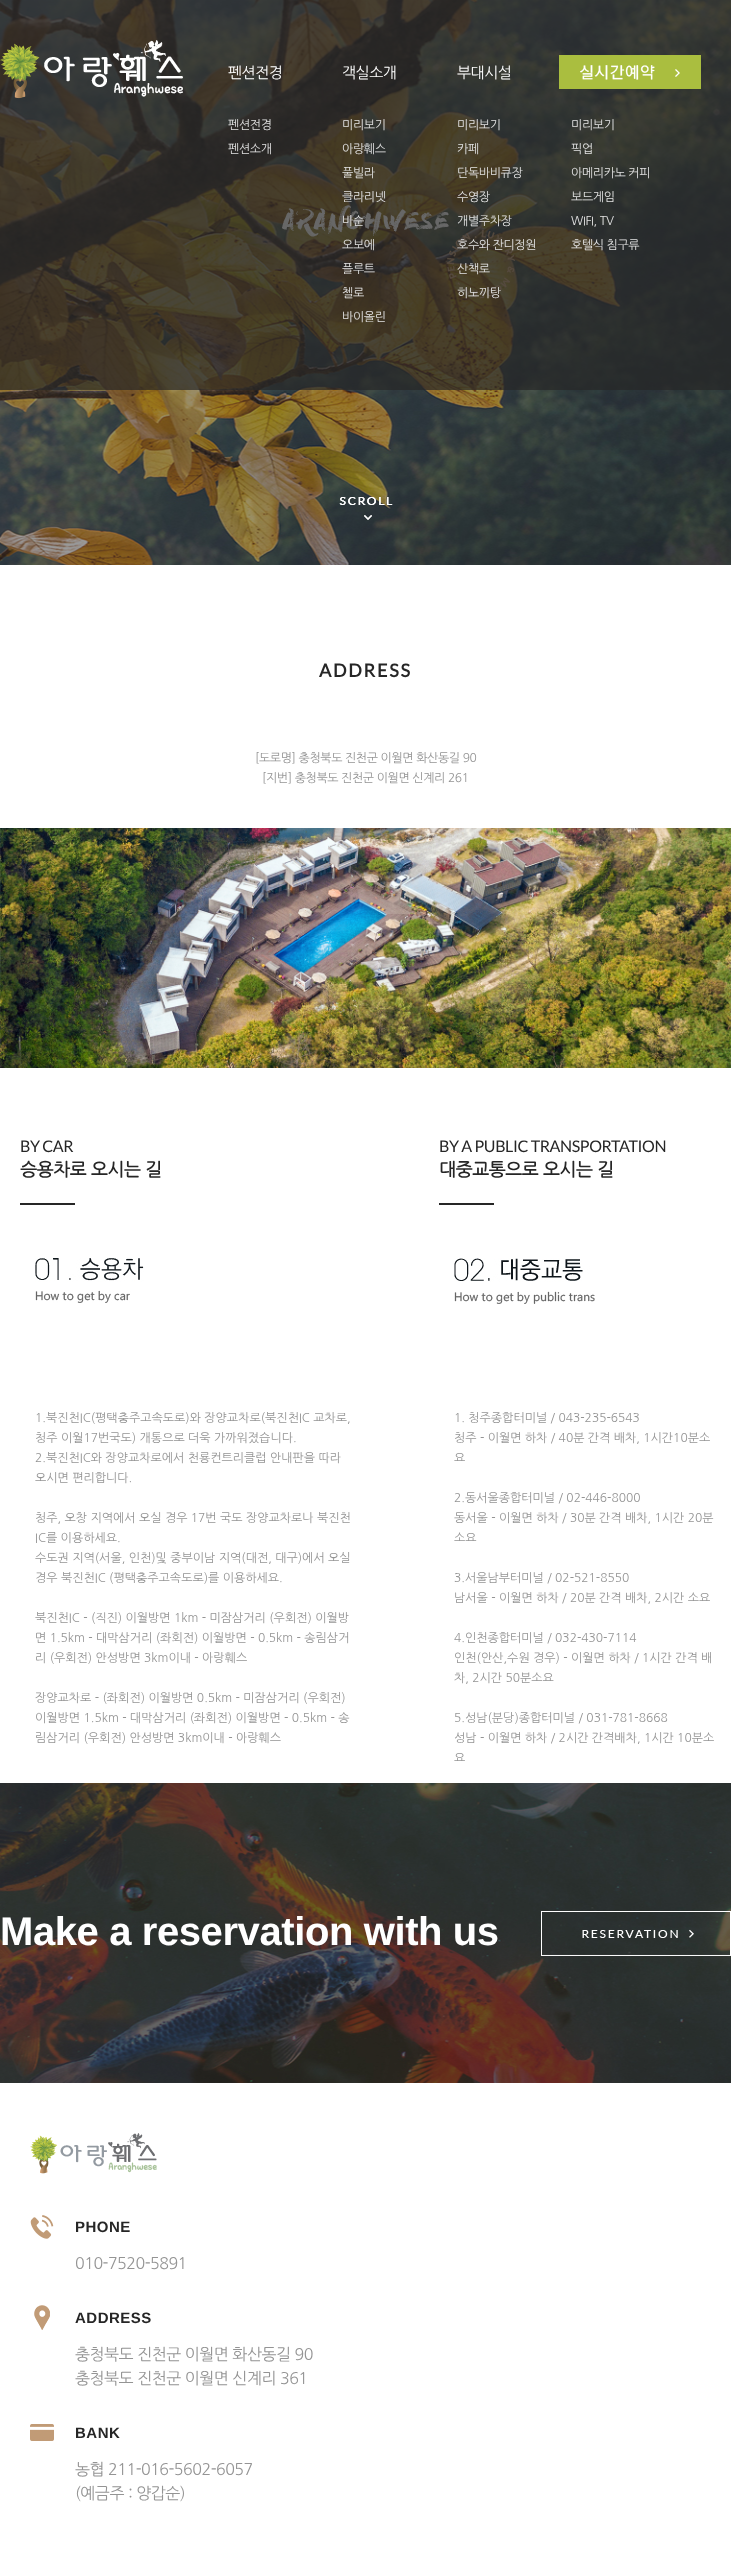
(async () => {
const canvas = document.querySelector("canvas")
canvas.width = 731
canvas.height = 2557
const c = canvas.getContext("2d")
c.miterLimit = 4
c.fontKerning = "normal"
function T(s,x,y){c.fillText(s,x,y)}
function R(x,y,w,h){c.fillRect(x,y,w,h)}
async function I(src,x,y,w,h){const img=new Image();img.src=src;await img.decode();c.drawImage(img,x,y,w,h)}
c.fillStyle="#fff"
R(0,0,731,2557)
await I("3.png",0,0,731,565)
await I("4.png",282,205,167,32)
await I("5.png",446,229,69,70)
c.fillStyle="#262626b3"
R(0,0,731,390)
await I("1.png",0,40,183,59)
c.letterSpacing="-0.5px"
c.font="15px NanumGothic"
c.fillStyle="#fff"
T("펜션전경",228,78)
c.letterSpacing="-0.4px"
c.font="12px NanumGothic"
c.fillStyle="#e2e2e2"
T("펜션전경",228,129)
T("펜션소개",228,153)
c.letterSpacing="-0.5px"
c.font="15px NanumGothic"
c.fillStyle="#fff"
T("객실소개",342,78)
c.letterSpacing="-0.4px"
c.font="12px NanumGothic"
c.fillStyle="#e2e2e2"
T("미리보기",342,129)
T("아랑훼스",342,153)
T("풀빌라",342,177)
T("클라리넷",342,201)
T("바순",342,225)
T("오보에",342,249)
T("플루트",342,273)
T("첼로",342,297)
T("바이올린",342,321)
c.letterSpacing="-0.5px"
c.font="15px NanumGothic"
c.fillStyle="#fff"
T("부대시설",457,78)
c.letterSpacing="-0.4px"
c.font="12px NanumGothic"
c.fillStyle="#e2e2e2"
T("미리보기",457,129)
T("카페",457,153)
T("단독바비큐장",457,177)
T("수영장",457,201)
T("개별주차장",457,225)
T("호수와 잔디정원",457,249)
T("산책로",457,273)
T("히노끼탕",457,297)
c.fillStyle="#aabe3f"
R(559,55,142,34)
await I("2.png",580,65,100,15)
c.fillStyle="#e2e2e2"
T("미리보기",571,129)
T("픽업",571,153)
T("아메리카노 커피",571,177)
T("보드게임",571,201)
T("WIFI‚ TV",571,225)
T("호텔식 침구류",571,249)
await I("6.png",339,497,54,23)
await I("7.png",339,497,54,23)
c.letterSpacing="1.75px"
c.font="bold 18px Lato"
c.fillStyle="#262626"
T("ADDRESS",319,677)
c.letterSpacing="-0.4px"
c.font="12px NanumGothic"
c.fillStyle="#949494"
T("[도로명] 충청북도 진천군 이월면 화산동길 90",255,762)
T("[지번] 충청북도 진천군 이월면 신계리 261",262,782)
await I("8.png",0,828,731,240)
c.font="16px Lato"
c.fillStyle="#262626"
T("BY CAR",20,1152)
c.font="bold 18px NanumGothic"
T("승용차로 오시는 길",20,1176)
R(20,1203,55,2)
await I("9.png",35,1258,315,486)
c.font="16px Lato"
T("BY A PUBLIC TRANSPORTATION",439,1152)
c.font="bold 18px NanumGothic"
T("대중교통으로 오시는 길",439,1176)
R(439,1203,55,2)
await I("10.png",454,1258,260,503)
await I("11.png",0,1783,731,300)
c.font="bold 40px Liberation Sans"
c.fillStyle="#fff"
T("Make a reservation with us",0,1945)
await I("12.png",541,1911,190,45)
await I("13.png",30,2133,127,41)
await I("14.png",30,2215,24,24)
c.letterSpacing="0.5px"
c.font="bold 15px Liberation Sans"
c.fillStyle="#262626"
T("PHONE",75,2232)
c.letterSpacing="-0.5px"
c.font="16px NanumGothic"
c.fillStyle="#949494"
T("010-7520-5891",75,2269)
await I("15.png",34,2305,16,25)
c.letterSpacing="0.5px"
c.font="bold 15px Liberation Sans"
c.fillStyle="#262626"
T("ADDRESS",75,2323)
c.letterSpacing="-0.5px"
c.font="16px NanumGothic"
c.fillStyle="#949494"
T("충청북도 진천군 이월면 화산동길 90",75,2360)
T("충청북도 진천군 이월면 신계리 361",75,2384)
await I("16.png",30,2424,24,17)
c.letterSpacing="0.5px"
c.font="bold 15px Liberation Sans"
c.fillStyle="#262626"
T("BANK",75,2438)
c.letterSpacing="-0.5px"
c.font="16px NanumGothic"
c.fillStyle="#949494"
T("농협 211-016-5602-6057",75,2475)
T("(예금주 : 양갑순)",75,2499)
})()
